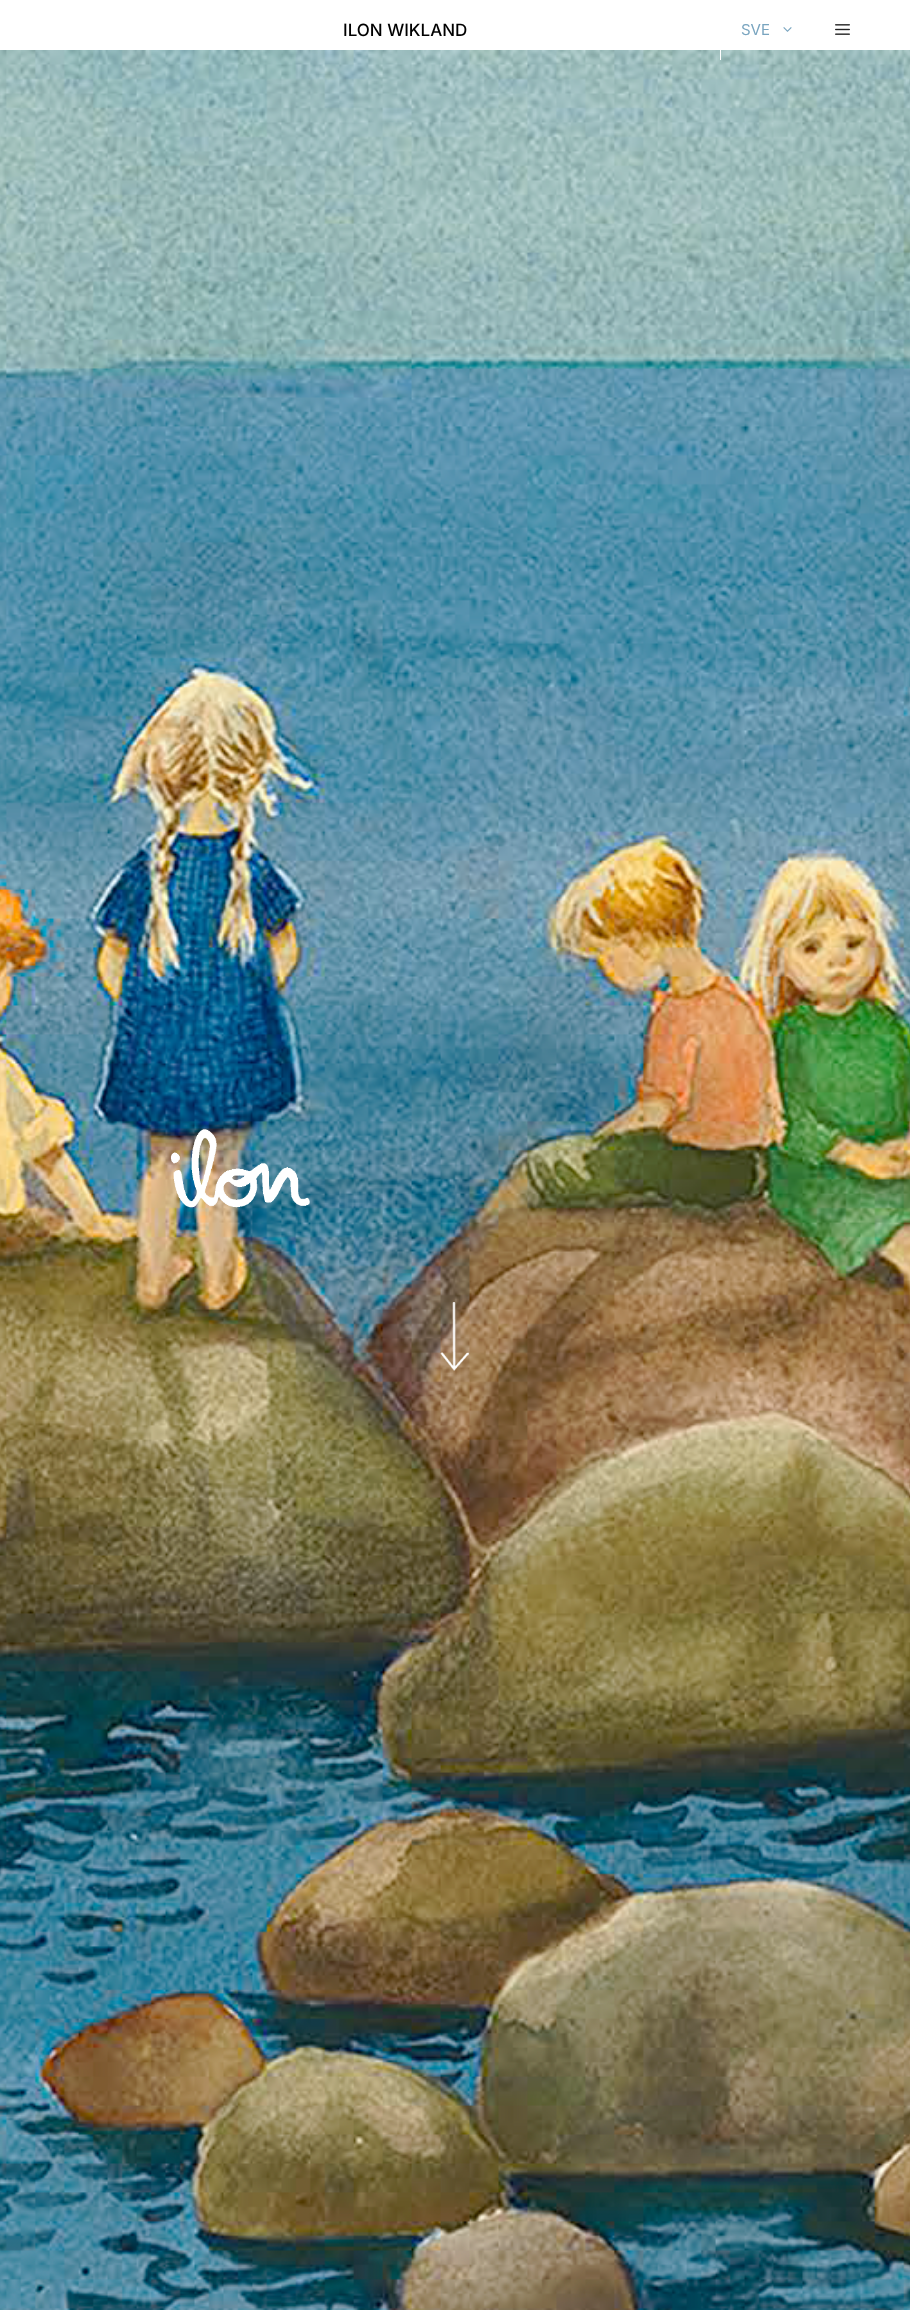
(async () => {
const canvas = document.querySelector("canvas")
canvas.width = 910
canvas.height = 2310
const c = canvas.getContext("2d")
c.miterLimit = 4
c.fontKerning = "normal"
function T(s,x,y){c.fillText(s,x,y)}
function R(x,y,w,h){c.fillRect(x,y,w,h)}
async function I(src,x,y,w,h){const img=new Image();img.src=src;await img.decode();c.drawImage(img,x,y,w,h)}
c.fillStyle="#fff"
R(0,0,910,2310)
c.font="500 17px Inter"
c.fillStyle="#000"
T("ILON WIKLAND",343,36)
await I("3.png",0,50,910,2260)
c.fillStyle="#fff"
R(720,50,1,10)
c.font="15px Inter"
c.fillStyle="#78a4bf"
T("SVE",741,35)
await I("1.png",783,27,9,5)
await I("2.png",835,24,15,11)
await I("4.png",170,1129,140,79)
await I("5.png",440,1302,29,69)
})()
